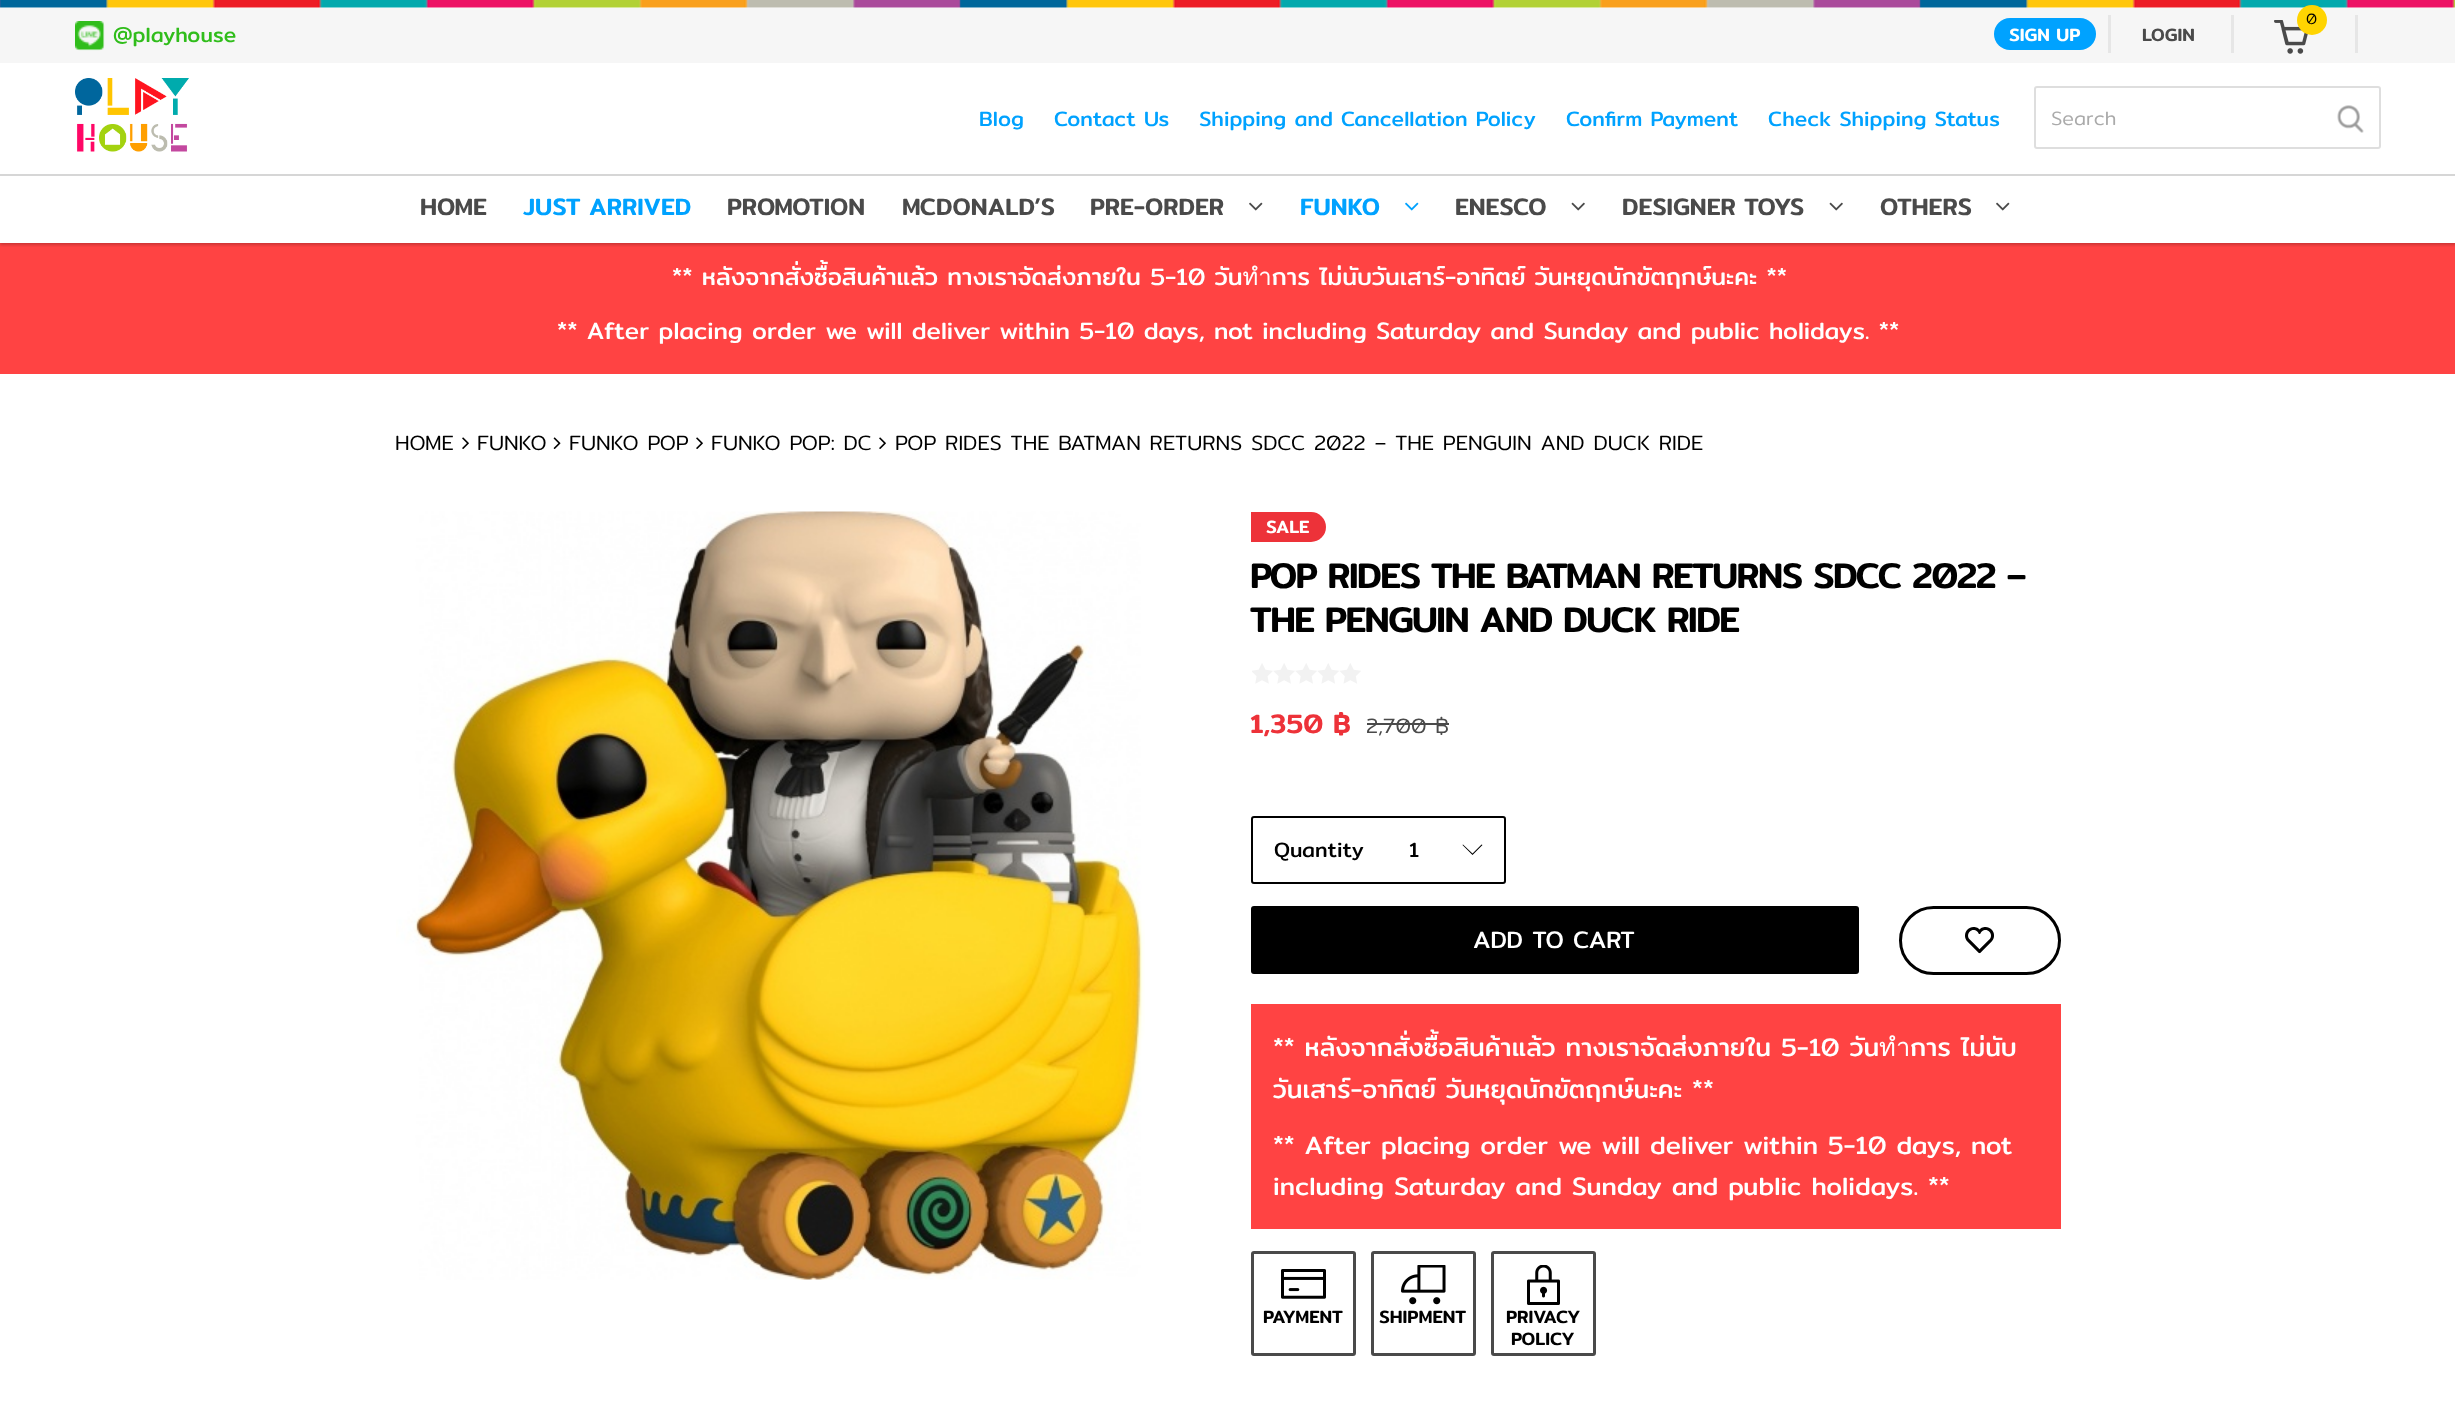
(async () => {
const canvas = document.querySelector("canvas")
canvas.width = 2455
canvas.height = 1406
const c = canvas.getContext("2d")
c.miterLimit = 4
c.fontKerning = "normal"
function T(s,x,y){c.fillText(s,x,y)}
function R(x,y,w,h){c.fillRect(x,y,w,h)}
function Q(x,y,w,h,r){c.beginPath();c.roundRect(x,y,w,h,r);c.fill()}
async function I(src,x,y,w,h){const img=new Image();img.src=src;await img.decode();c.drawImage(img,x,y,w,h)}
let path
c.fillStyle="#fff"
R(0,0,2455,1406)
await I("1.png",0,0,2455,8)
c.fillStyle="#f6f6f6"
R(0,8,2455,55)
await I("2.png",75,21,30,30)
c.font="21px Mitr"
c.fillStyle="#30bd1b"
T("@playhouse",113,42)
await I("3.png",2274,20,34,34)
c.fillStyle="#ffd401"
c.beginPath()
c.arc(2312,20,15,0,7)
c.fill()
c.font="300 15px Mitr"
c.fillStyle="#000"
T("0",2306,24)
c.fillStyle="#e6e6e6"
R(2355,15,3,38)
c.fillStyle="#00a2ff"
Q(1994,18,102,32,16)
c.font="500 18px Mitr"
c.fillStyle="#fff"
T("SIGN UP",2009,41)
c.fillStyle="#e6e6e6"
R(2108,15,3,38)
c.fillStyle="#4a4a4a"
T("LOGIN",2142,41)
c.fillStyle="#e6e6e6"
R(2231,15,3,38)
c.fillStyle="#ff4343"
R(0,243,2455,131)
c.save()
c.beginPath()
c.rect(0,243,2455,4)
c.clip()
c.fillStyle="#00000033"
c.filter="blur(1.5px)"
c.beginPath()
c.rect(0,177,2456,68)
c.fill()
c.filter="none"
c.restore()
c.fillStyle="#d6d6d6"
R(0,174,2455,2)
await I("4.png",75,78,114,74)
c.font="21px Mitr"
c.fillStyle="#00a2ff"
T("Blog",979,126)
T("Contact Us",1054,126)
T("Shipping and Cancellation Policy",1199,126)
T("Confirm Payment",1566,126)
T("Check Shipping Status",1768,126)
c.beginPath()
c.roundRect(2035,87,345,61,2)
c.strokeStyle="#dedede"
c.lineWidth=2
c.stroke()
c.font="300 19.5px Mitr"
c.fillStyle="#aaa"
T("Search",2051,125)
await I("5.png",2337,105,27,28)
c.font="500 24px Mitr"
c.fillStyle="#4a4a4a"
T("HOME",420,215)
c.fillStyle="#00a2ff"
T("JUST ARRIVED",523,215)
c.fillStyle="#4a4a4a"
T("PROMOTION",727,215)
T("MCDONALD’S",902,215)
T("PRE-ORDER",1090,215)
await I("6.png",1249,202,14,9)
c.fillStyle="#00a2ff"
T("FUNKO",1300,215)
await I("7.png",1405,202,14,9)
c.fillStyle="#4a4a4a"
T("ENESCO",1455,215)
await I("8.png",1571,202,14,9)
T("DESIGNER TOYS",1622,215)
await I("8.png",1829,202,14,9)
T("OTHERS",1880,215)
await I("6.png",1996,202,14,9)
c.font="24px Mitr"
c.fillStyle="#fff"
T("** หลังจากสั่งซื้อสินค้าแล้ว ทางเราจัดส่งภายใน 5-10 วันทำการ ไม่นับวันเสาร์-อาทิตย์ วันหยุดนักขัตฤกษ์นะคะ **",672,285)
T("** After placing order we will deliver within 5-10 days, not including Saturday and Sunday and public holidays. **",557,339)
c.font="300 21px Mitr"
c.fillStyle="#000"
T("HOME",395,450)
await I("9.png",462,437,7,12)
T("FUNKO",477,450)
await I("10.png",553,437,8,12)
T("FUNKO POP",569,450)
await I("9.png",696,437,7,12)
T("FUNKO POP: DC",711,450)
await I("9.png",879,437,7,12)
T("POP RIDES THE BATMAN RETURNS SDCC 2022 – THE PENGUIN AND DUCK RIDE",895,450)
await I("11.png",396,511,749,769)
c.fillStyle="#ed3239"
c.beginPath()
c.roundRect(1251,512,75,30,[0,15,15,0])
c.fill()
c.font="500 18px Mitr"
c.fillStyle="#fff"
T("SALE",1266,533)
c.letterSpacing="-1.5px"
c.font="500 36px Mitr"
c.fillStyle="#000"
T("POP RIDES THE BATMAN RETURNS SDCC 2022 –",1250,588)
T("THE PENGUIN AND DUCK RIDE",1250,632)
await I("12.png",1252,663,109,21)
c.letterSpacing="0px"
c.font="500 27px Mitr"
c.fillStyle="#ed3239"
T("1,350 ฿",1250,733)
c.font="300 21px Mitr"
c.fillStyle="#4a4a4a"
T("2,700 ฿",1366,733)
R(1367,723,82,2)
c.beginPath()
c.roundRect(1252,817,253,66,2)
c.strokeStyle="#000"
c.stroke()
c.font="21px Mitr"
c.fillStyle="#000"
T("Quantity",1274,857)
path = new Path2D("M1482.5 845l-1-.5l-9 9l-9.5-9l-.5 .5l10 10z")
c.fill(path)
T("1",1409,857)
Q(1251,906,608,68,3)
c.font="24px Mitr"
c.fillStyle="#fff"
T("ADD TO CART",1473,948)
await I("13.png",1965,927,29,27)
c.beginPath()
c.roundRect(1900.5,907.5,159,66,33)
c.lineWidth=3
c.stroke()
c.fillStyle="#ff4343"
R(1251,1004,810,225)
c.font="25.5px Mitr"
c.fillStyle="#fff"
T("** หลังจากสั่งซื้อสินค้าแล้ว ทางเราจัดส่งภายใน 5-10 วันทำการ ไม่นับ",1273,1056)
T("วันเสาร์-อาทิตย์ วันหยุดนักขัตฤกษ์นะคะ **",1273,1098)
T("** After placing order we will deliver within 5-10 days, not",1273,1154)
T("including Saturday and Sunday and public holidays. **",1273,1195)
c.beginPath()
c.roundRect(1252.5,1252.5,102,102,1.5)
c.strokeStyle="#4a4a4a"
c.stroke()
await I("14.png",1281,1269,45,30)
c.font="500 18px Mitr"
c.fillStyle="#000"
T("PAYMENT",1263,1323)
c.beginPath()
c.roundRect(1372.5,1252.5,102,102,1.5)
c.stroke()
await I("15.png",1401,1265,45,40)
T("SHIPMENT",1379,1323)
c.beginPath()
c.roundRect(1492.5,1252.5,102,102,1.5)
c.stroke()
await I("16.png",1527,1265,33,40)
T("PRIVACY",1506,1323)
T("POLICY",1511,1345)
})()
